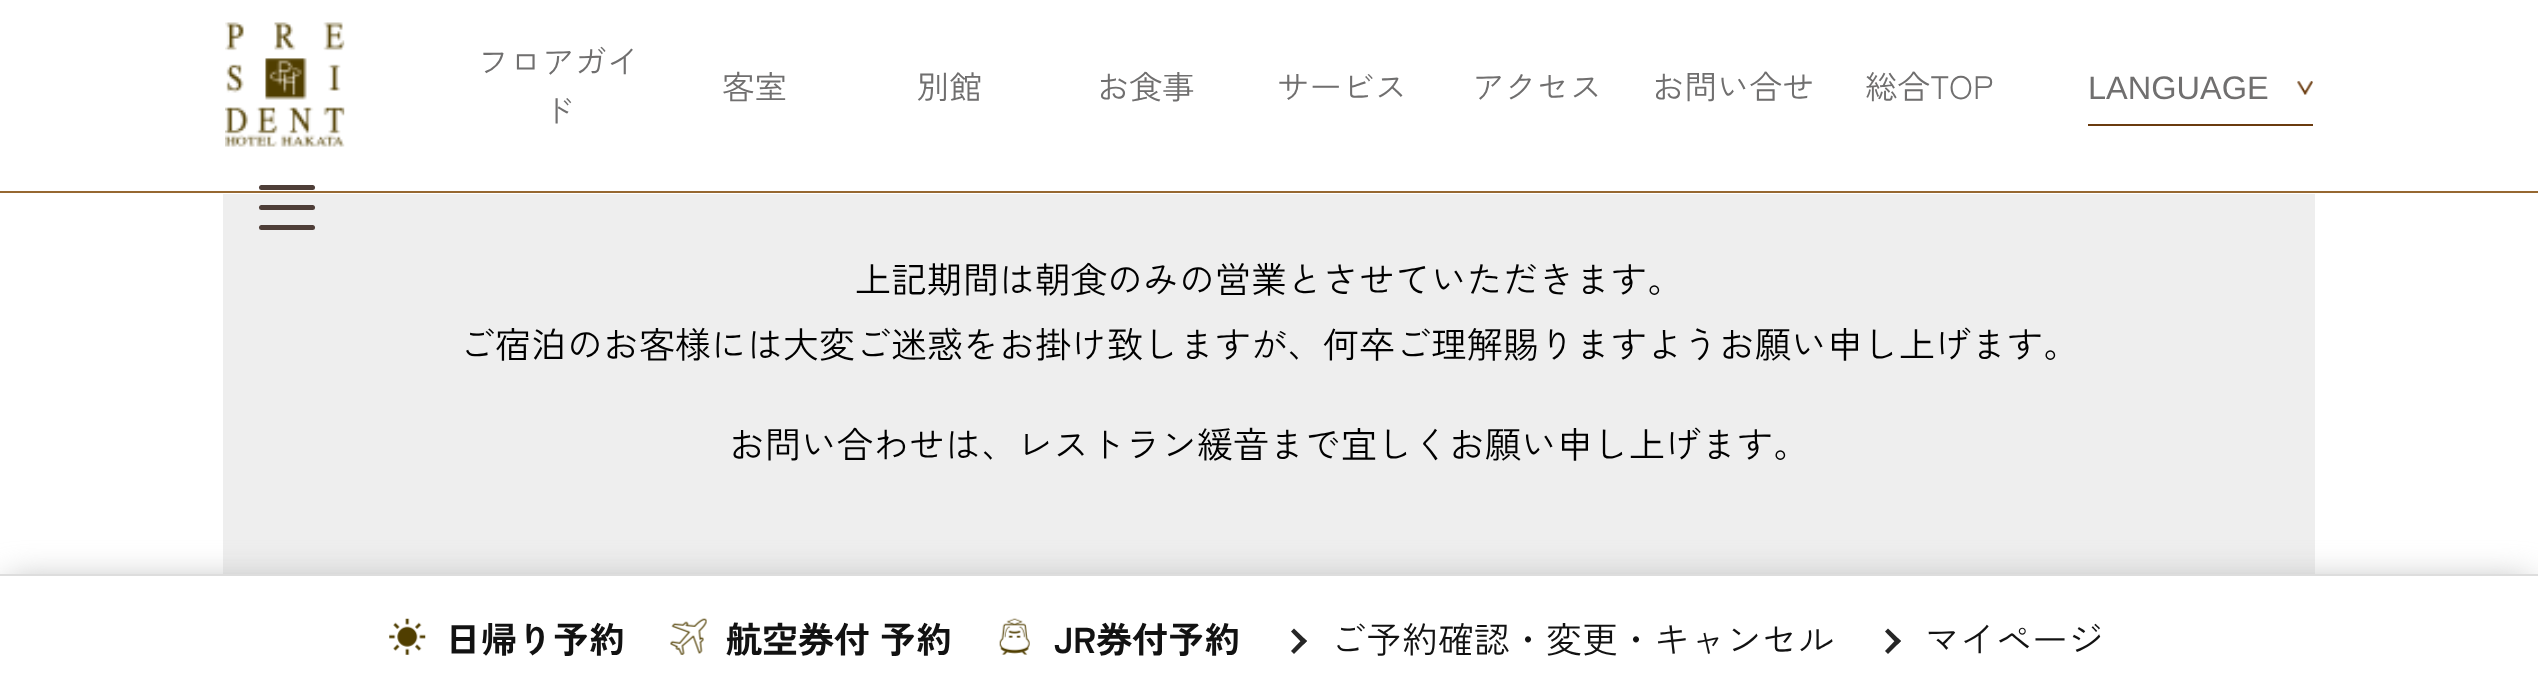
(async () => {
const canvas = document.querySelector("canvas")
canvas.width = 2538
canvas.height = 697
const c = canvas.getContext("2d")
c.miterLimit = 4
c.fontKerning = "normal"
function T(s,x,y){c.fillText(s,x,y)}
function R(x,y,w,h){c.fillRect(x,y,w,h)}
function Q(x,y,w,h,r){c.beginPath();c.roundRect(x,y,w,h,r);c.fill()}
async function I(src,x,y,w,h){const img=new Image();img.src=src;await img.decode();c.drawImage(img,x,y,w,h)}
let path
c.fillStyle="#fff"
R(0,0,2538,697)
c.fillStyle="#966831"
R(0,191,2538,2)
await I("1.png",225,22,120,125)
c.font="32.5px Zen Kaku Gothic New"
c.fillStyle="#706f6f"
T("フロアガイ",477,74)
T("ド",542,123)
T("客室",722,99)
T("別館",917,99)
T("お食事",1097,99)
T("サービス",1277,99)
T("アクセス",1472,99)
T("お問い合せ",1652,99)
T("総合TOP",1865,99)
await I("2.png",2297,81,16,14)
c.fillStyle="#6a3b0f"
R(2088,124,225,2)
c.font="32.5px Liberation Sans"
c.fillStyle="#706f6f"
T("LANGUAGE",2088,99)
c.fillStyle="#4e3e38"
Q(259,185,56,5,2.5)
c.fillStyle="#eee"
R(223,194,2092,380)
c.fillStyle="#4e3e38"
Q(259,205,56,5,2.5)
Q(259,225,56,5,2.5)
c.font="36px Zen Kaku Gothic New"
c.fillStyle="#000"
T("上記期間は朝食のみの営業とさせていただきます。",855,293)
T("ご宿泊のお客様には大変ご迷惑をお掛け致しますが、何卒ご理解賜りますようお願い申し上げます。",459,358)
T("お問い合わせは、レストラン緩音まで宜しくお願い申し上げます。",729,458)
c.fillStyle="#b3b4b4"
c.filter="blur(17px)"
c.beginPath()
c.rect(7,581,2524,110)
c.fill()
c.filter="none"
c.fillStyle="#fff"
R(0,576,2538,121)
c.fillStyle="#ddd"
R(0,574,2538,2)
await I("3.png",389,618,37,37)
c.font="bold 36px Zen Kaku Gothic New"
c.fillStyle="#121212"
T("日帰り予約",445,653)
await I("4.png",670,618,37,37)
T("航空券付 予約",726,653)
await I("5.png",999,618,31,37)
T("JR券付予約",1054,653)
c.fillStyle="#262626"
path = new Path2D("M1291 631.5l3-3l13 12.5l-3.5 3.5z")
c.fill(path)
path = new Path2D("M1291 651l12.5-13l3.5 3l-13 13z")
c.fill(path)
c.font="36px Zen Kaku Gothic New"
c.fillStyle="#121212"
T("ご予約確認・変更・キャンセル",1330,653)
c.fillStyle="#262626"
path = new Path2D("M1885 631.5l3-3l13 12.5l-3.5 3.5z")
c.fill(path)
path = new Path2D("M1885 651l12.5-13l3.5 3l-13 13z")
c.fill(path)
c.fillStyle="#121212"
T("マイページ",1924,653)
})()
